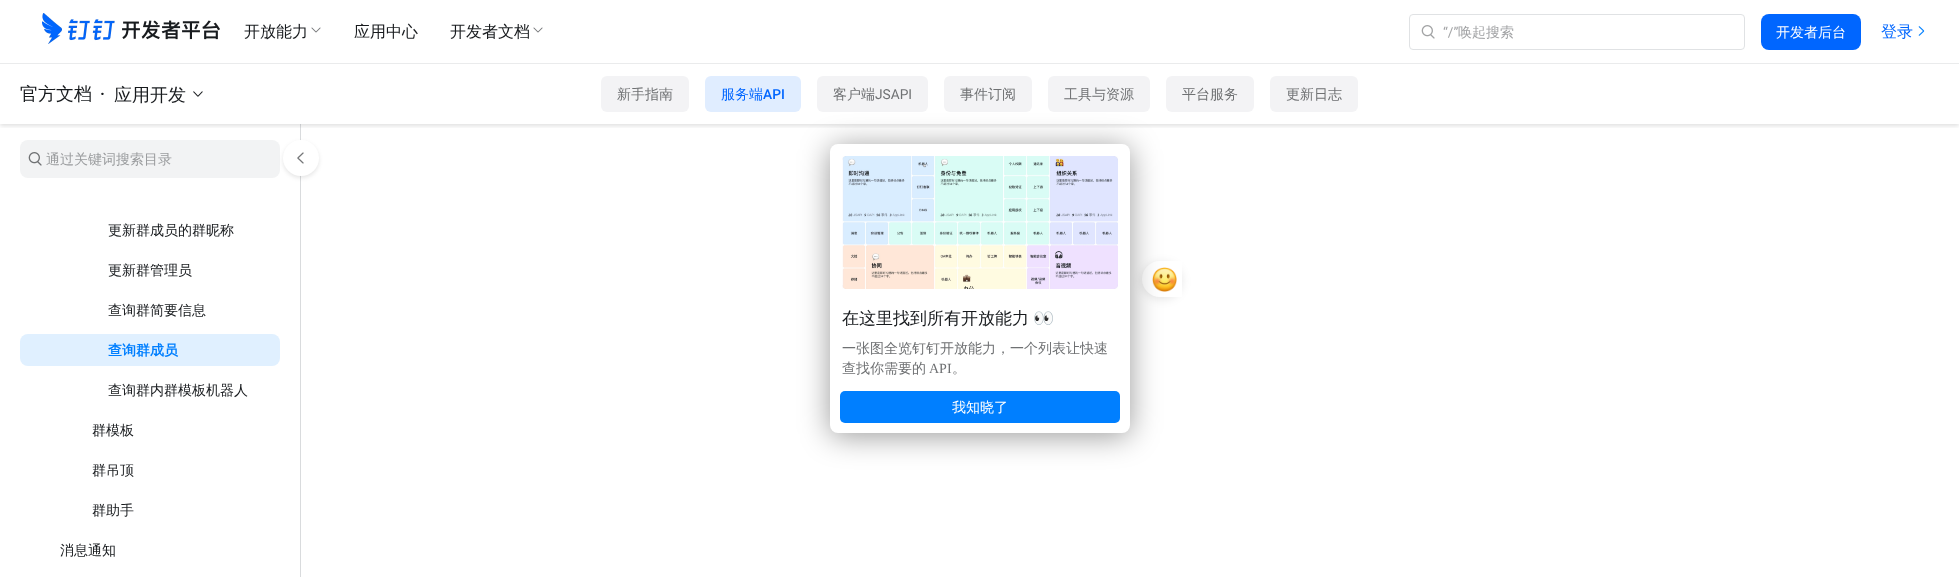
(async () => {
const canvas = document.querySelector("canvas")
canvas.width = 1959
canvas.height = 577
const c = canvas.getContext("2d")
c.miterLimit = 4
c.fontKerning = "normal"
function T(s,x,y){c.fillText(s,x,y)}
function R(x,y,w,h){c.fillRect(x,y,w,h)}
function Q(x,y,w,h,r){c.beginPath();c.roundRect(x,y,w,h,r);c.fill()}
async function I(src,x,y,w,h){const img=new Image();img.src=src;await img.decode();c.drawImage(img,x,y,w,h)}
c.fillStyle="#fff"
R(0,0,1959,577)
c.fillStyle="#f6f6f6"
R(300,124,1,453)
c.save()
c.beginPath()
c.rect(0,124,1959,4)
c.clip()
c.fillStyle="#0000001f"
c.filter="blur(2px)"
c.beginPath()
c.rect(0,66,1959,60)
c.fill()
c.filter="none"
c.restore()
c.fillStyle="#eaebec"
R(0,63,1959,1)
await I("1.png",42,13,178,31)
c.font="500 16px WenQuanYi Zen Hei"
c.fillStyle="#171a1d"
T("开放能力",244,37)
await I("2.png",311,27,10,6)
T("应用中心",354,37)
T("开发者文档",450,37)
await I("2.png",533,27,10,6)
c.beginPath()
c.roundRect(1409.5,14.5,335,35,3.5)
c.strokeStyle="#e0e2e4"
c.stroke()
await I("3.png",1421,25,14,14)
c.font="14px Roboto"
c.fillStyle="#a2a3a5"
T("“/”",1443,37)
c.font="500 14px WenQuanYi Zen Hei"
T("唤起搜索",1458,37)
c.fillStyle="#06f"
Q(1761,14,100,36,8)
c.fillStyle="#fff"
T("开发者后台",1776,37)
c.font="500 16px WenQuanYi Zen Hei"
c.fillStyle="#06f"
T("登录",1881,37)
await I("4.png",1918,26,7,10)
c.font="500 18px WenQuanYi Zen Hei"
c.fillStyle="#171a1d"
T("官方文档",20,100)
c.font="500 18px Roboto"
T("·",100,100)
c.font="500 18px WenQuanYi Zen Hei"
T("应用开发",114,101)
await I("5.png",193,91,10,6)
c.fillStyle="#f3f3f5"
Q(601,76,88,36,6)
c.font="500 14px WenQuanYi Zen Hei"
c.fillStyle="#6f7173"
T("新手指南",617,99)
c.fillStyle="#e0edff"
Q(705,76,96,36,6)
c.fillStyle="#06f"
T("服务端",721,99)
c.font="500 14px Roboto"
T("API",763,99)
c.fillStyle="#f3f3f5"
Q(817,76,111,36,6)
c.font="500 14px WenQuanYi Zen Hei"
c.fillStyle="#6f7173"
T("客户端",833,99)
c.font="14px Roboto"
T("JSAPI",875,99)
c.fillStyle="#f3f3f5"
Q(944,76,88,36,6)
c.font="500 14px WenQuanYi Zen Hei"
c.fillStyle="#6f7173"
T("事件订阅",960,99)
c.fillStyle="#f3f3f5"
Q(1048,76,102,36,6)
c.fillStyle="#6f7173"
T("工具与资源",1064,99)
c.fillStyle="#f3f3f5"
Q(1166,76,88,36,6)
c.fillStyle="#6f7173"
T("平台服务",1182,99)
c.fillStyle="#f3f3f5"
Q(1270,76,88,36,6)
c.fillStyle="#6f7173"
T("更新日志",1286,99)
c.fillStyle="#f2f3f4"
Q(20,140,260,38,8)
await I("6.png",28,152,14,14)
c.fillStyle="#9a9c9e"
T("通过关键词搜索目录",46,164)
c.fillStyle="#171a1d"
T("更新群成员的群昵称",108,235)
T("更新群管理员",108,275)
T("查询群简要信息",108,315)
c.fillStyle="#e0f0ff"
Q(20,334,260,32,8)
c.font="bold 14px WenQuanYi Zen Hei"
c.fillStyle="#007fff"
T("查询群成员",108,355)
c.font="500 14px WenQuanYi Zen Hei"
c.fillStyle="#171a1d"
T("查询群内群模板机器人",108,395)
T("群模板",92,435)
T("群吊顶",92,475)
T("群助手",92,515)
T("消息通知",60,555)
c.fillStyle="#7e868e3d"
R(300,124,1,453)
c.fillStyle="#0000001a"
c.filter="blur(2px)"
c.beginPath()
c.roundRect(283,142,36,36,18)
c.fill()
c.filter="none"
c.fillStyle="#fff"
c.beginPath()
c.arc(301,158,18,0,7)
c.fill()
await I("7.png",297,152,7,12)
c.fillStyle="#0000001a"
c.filter="blur(5px)"
c.beginPath()
c.roundRect(1142,263,40,36,18)
c.fill()
c.filter="none"
c.fillStyle="#fff"
c.beginPath()
c.roundRect(1142,261,40,36,[18,0,0,18])
c.fill()
await I("8.png",1152,267,25,25)
c.fillStyle="#00000066"
c.filter="blur(15px)"
c.beginPath()
c.roundRect(830,147,300,289,8)
c.fill()
c.filter="none"
c.fillStyle="#fff"
Q(830,144,300,289,8)
await I("9.png",842,156,276,133)
c.font="500 17px WenQuanYi Zen Hei"
c.fillStyle="#171a1d"
T("在这里找到所有开放能力",842,324)
c.font="17px Noto Color Emoji"
T("👀",1033,324)
c.font="500 14px WenQuanYi Zen Hei"
c.fillStyle="#6f7173"
T("一张图全览钉钉开放能力，一个列表让快速",842,353)
T("查找你需要的",842,373)
c.font="14px Liberation Serif"
T("API",929,373)
c.font="500 14px WenQuanYi Zen Hei"
T("。",952,373)
c.fillStyle="#007fff"
Q(840,391,280,32,5)
c.fillStyle="#fff"
T("我知晓了",952,412)
})()
